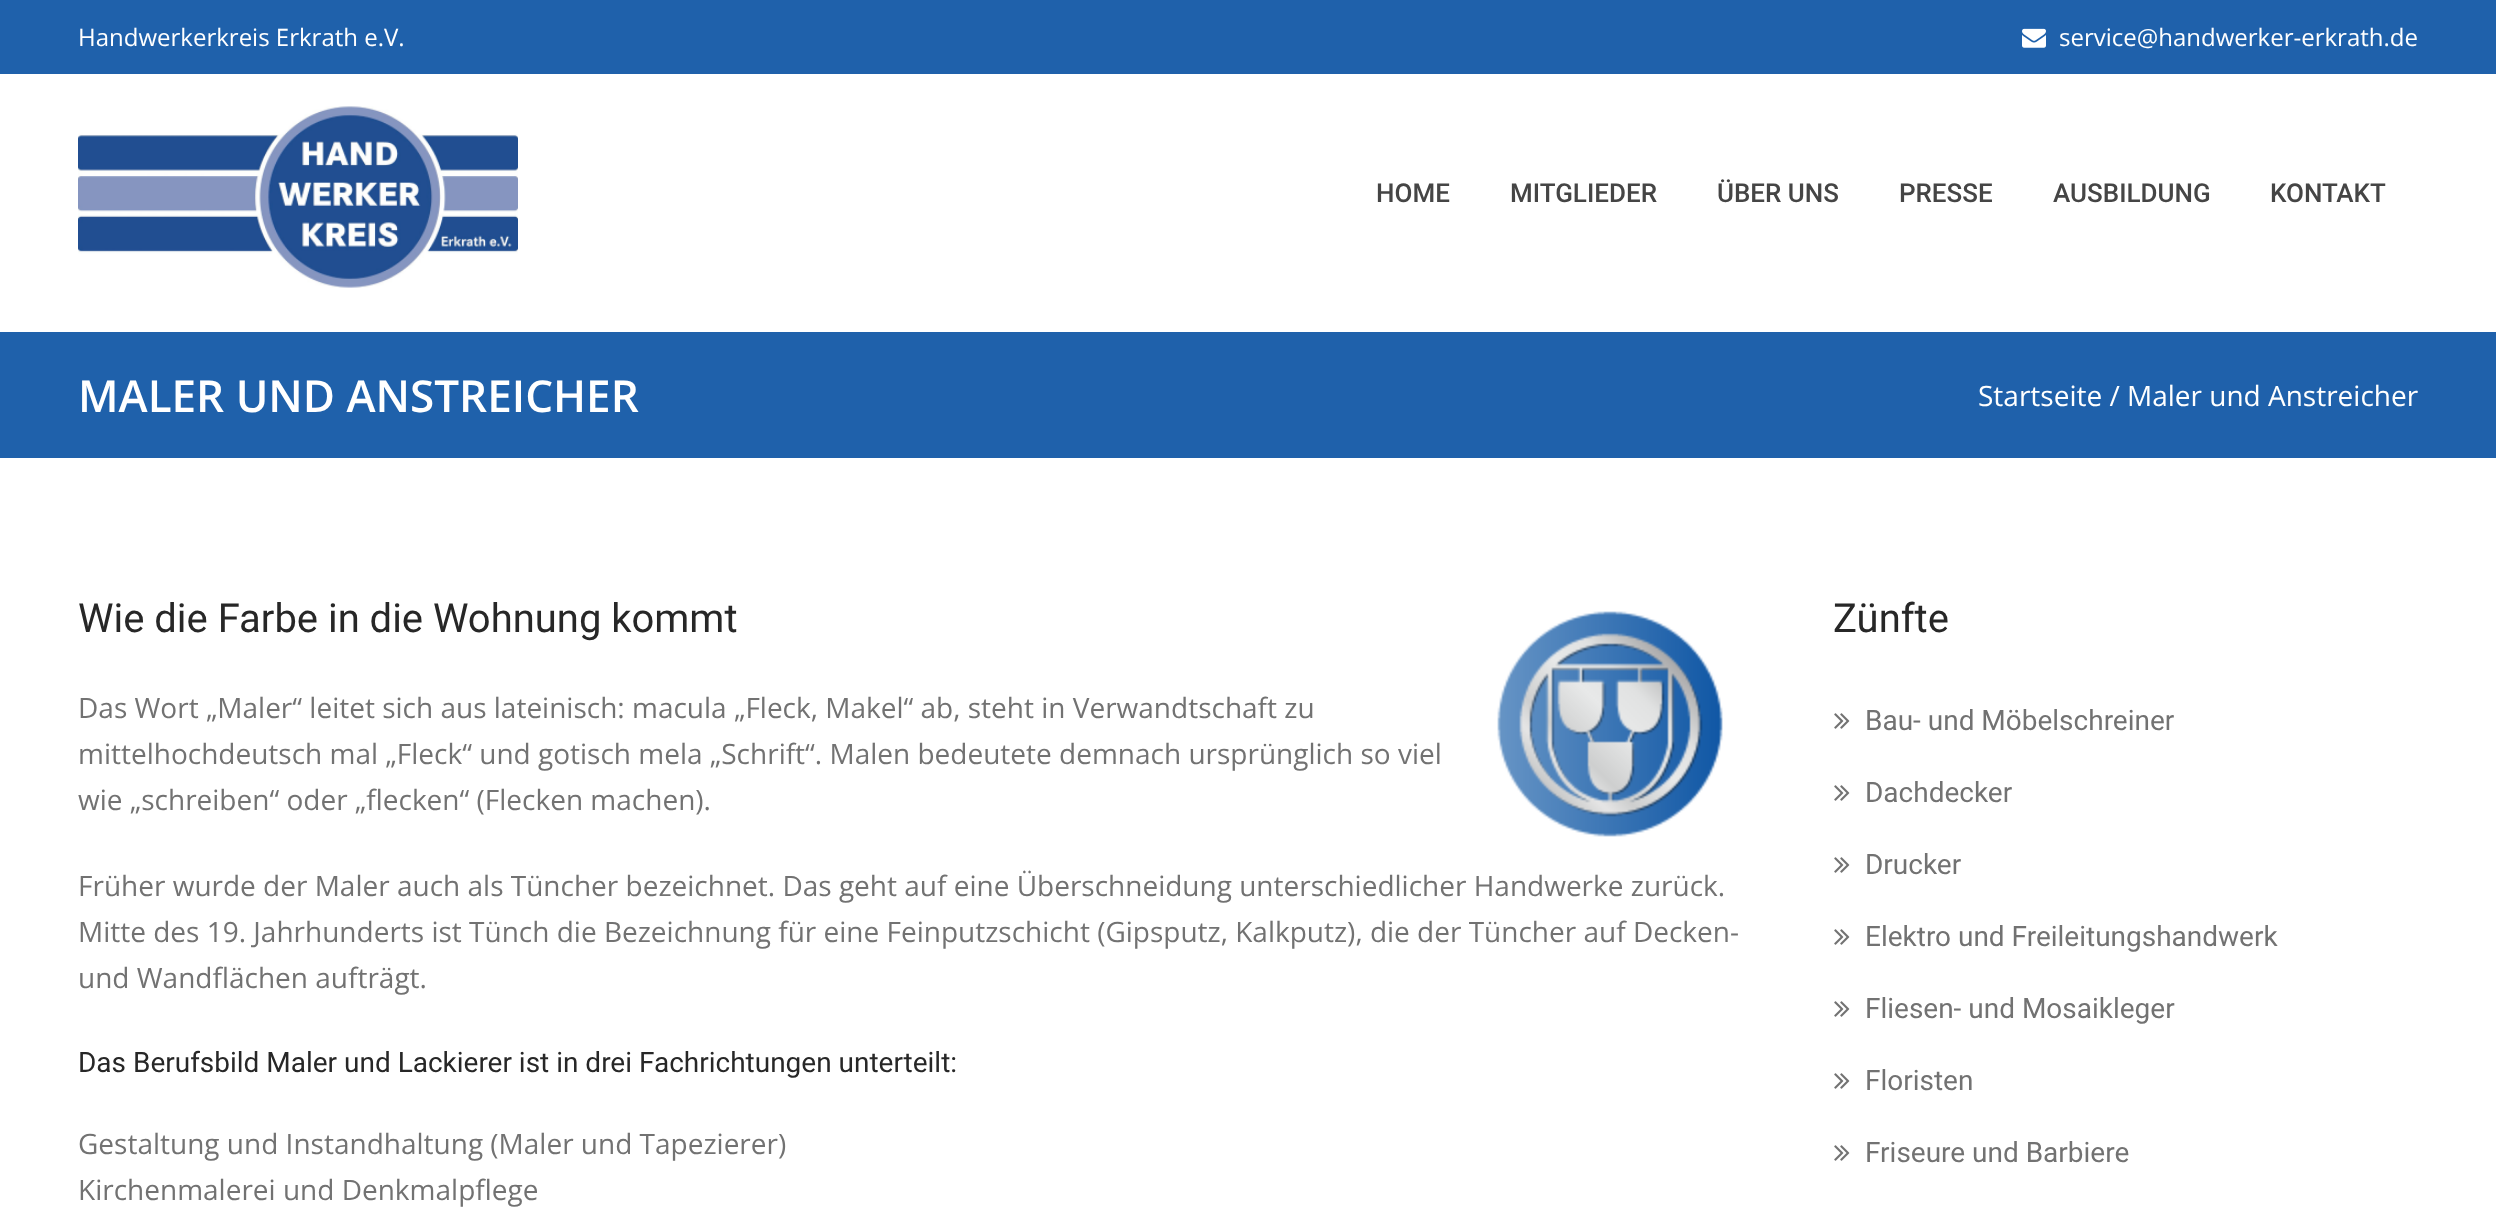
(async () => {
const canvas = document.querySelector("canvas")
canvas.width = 2496
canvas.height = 1215
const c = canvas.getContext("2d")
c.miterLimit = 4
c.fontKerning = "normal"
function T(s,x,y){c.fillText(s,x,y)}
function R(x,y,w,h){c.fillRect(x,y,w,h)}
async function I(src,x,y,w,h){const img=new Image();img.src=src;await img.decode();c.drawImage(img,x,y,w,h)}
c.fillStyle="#fff"
R(0,0,2496,1215)
c.fillStyle="#1f61ab"
R(0,0,2496,74)
c.font="24px Open Sans"
c.fillStyle="#fff"
T("Handwerkerkreis Erkrath e.V.",78,46)
await I("1.png",2022,28,24,20)
T("service@handwerker-erkrath.de",2059,46)
await I("2.png",78,106,440,182)
c.font="500 26px Roboto"
c.fillStyle="#454545"
T("HOME",1376,202)
T("MITGLIEDER",1510,202)
T("ÜBER UNS",1717,202)
T("PRESSE",1899,202)
T("AUSBILDUNG",2053,202)
T("KONTAKT",2270,202)
c.fillStyle="#1f61ab"
R(0,332,2496,126)
c.font="600 44px Open Sans"
c.fillStyle="#fff"
T("MALER UND ANSTREICHER",78,412)
c.font="28px Open Sans"
T("Startseite / Maler und Anstreicher",1978,406)
c.font="40px Roboto"
c.fillStyle="#272727"
T("Wie die Farbe in die Wohnung kommt",78,632)
await I("3.png",1497,611,226,226)
c.font="28px Open Sans"
c.fillStyle="#727272"
T("Das Wort „Maler“ leitet sich aus lateinisch: macula „Fleck, Makel“ ab, steht in Verwandtschaft zu",78,718)
T("mittelhochdeutsch mal „Fleck“ und gotisch mela „Schrift“. Malen bedeutete demnach ursprünglich so viel",78,764)
T("wie „schreiben“ oder „flecken“ (Flecken machen).",78,810)
T("Früher wurde der Maler auch als Tüncher bezeichnet. Das geht auf eine Überschneidung unterschiedlicher Handwerke zurück.",78,896)
T("Mitte des 19. Jahrhunderts ist Tünch die Bezeichnung für eine Feinputzschicht (Gipsputz, Kalkputz), die der Tüncher auf Decken-",78,942)
T("und Wandflächen aufträgt.",78,988)
c.font="28px Roboto"
c.fillStyle="#272727"
T("Das Berufsbild Maler und Lackierer ist in drei Fachrichtungen unterteilt:",78,1072)
c.font="28px Open Sans"
c.fillStyle="#727272"
T("Gestaltung und Instandhaltung (Maler und Tapezierer)",78,1154)
T("Kirchenmalerei und Denkmalpflege",78,1200)
c.font="40px Roboto"
c.fillStyle="#272727"
T("Zünfte",1833,632)
await I("4.png",1834,713,16,16)
c.font="28px Roboto"
c.fillStyle="#727272"
T("Bau- und Möbelschreiner",1865,730)
await I("4.png",1834,785,16,16)
T("Dachdecker",1865,802)
await I("4.png",1834,857,16,16)
T("Drucker",1865,874)
await I("4.png",1834,929,16,16)
T("Elektro und Freileitungshandwerk",1865,946)
await I("4.png",1834,1001,16,16)
T("Fliesen- und Mosaikleger",1865,1018)
await I("4.png",1834,1073,16,16)
T("Floristen",1865,1090)
await I("4.png",1834,1145,16,16)
T("Friseure und Barbiere",1865,1162)
})()
